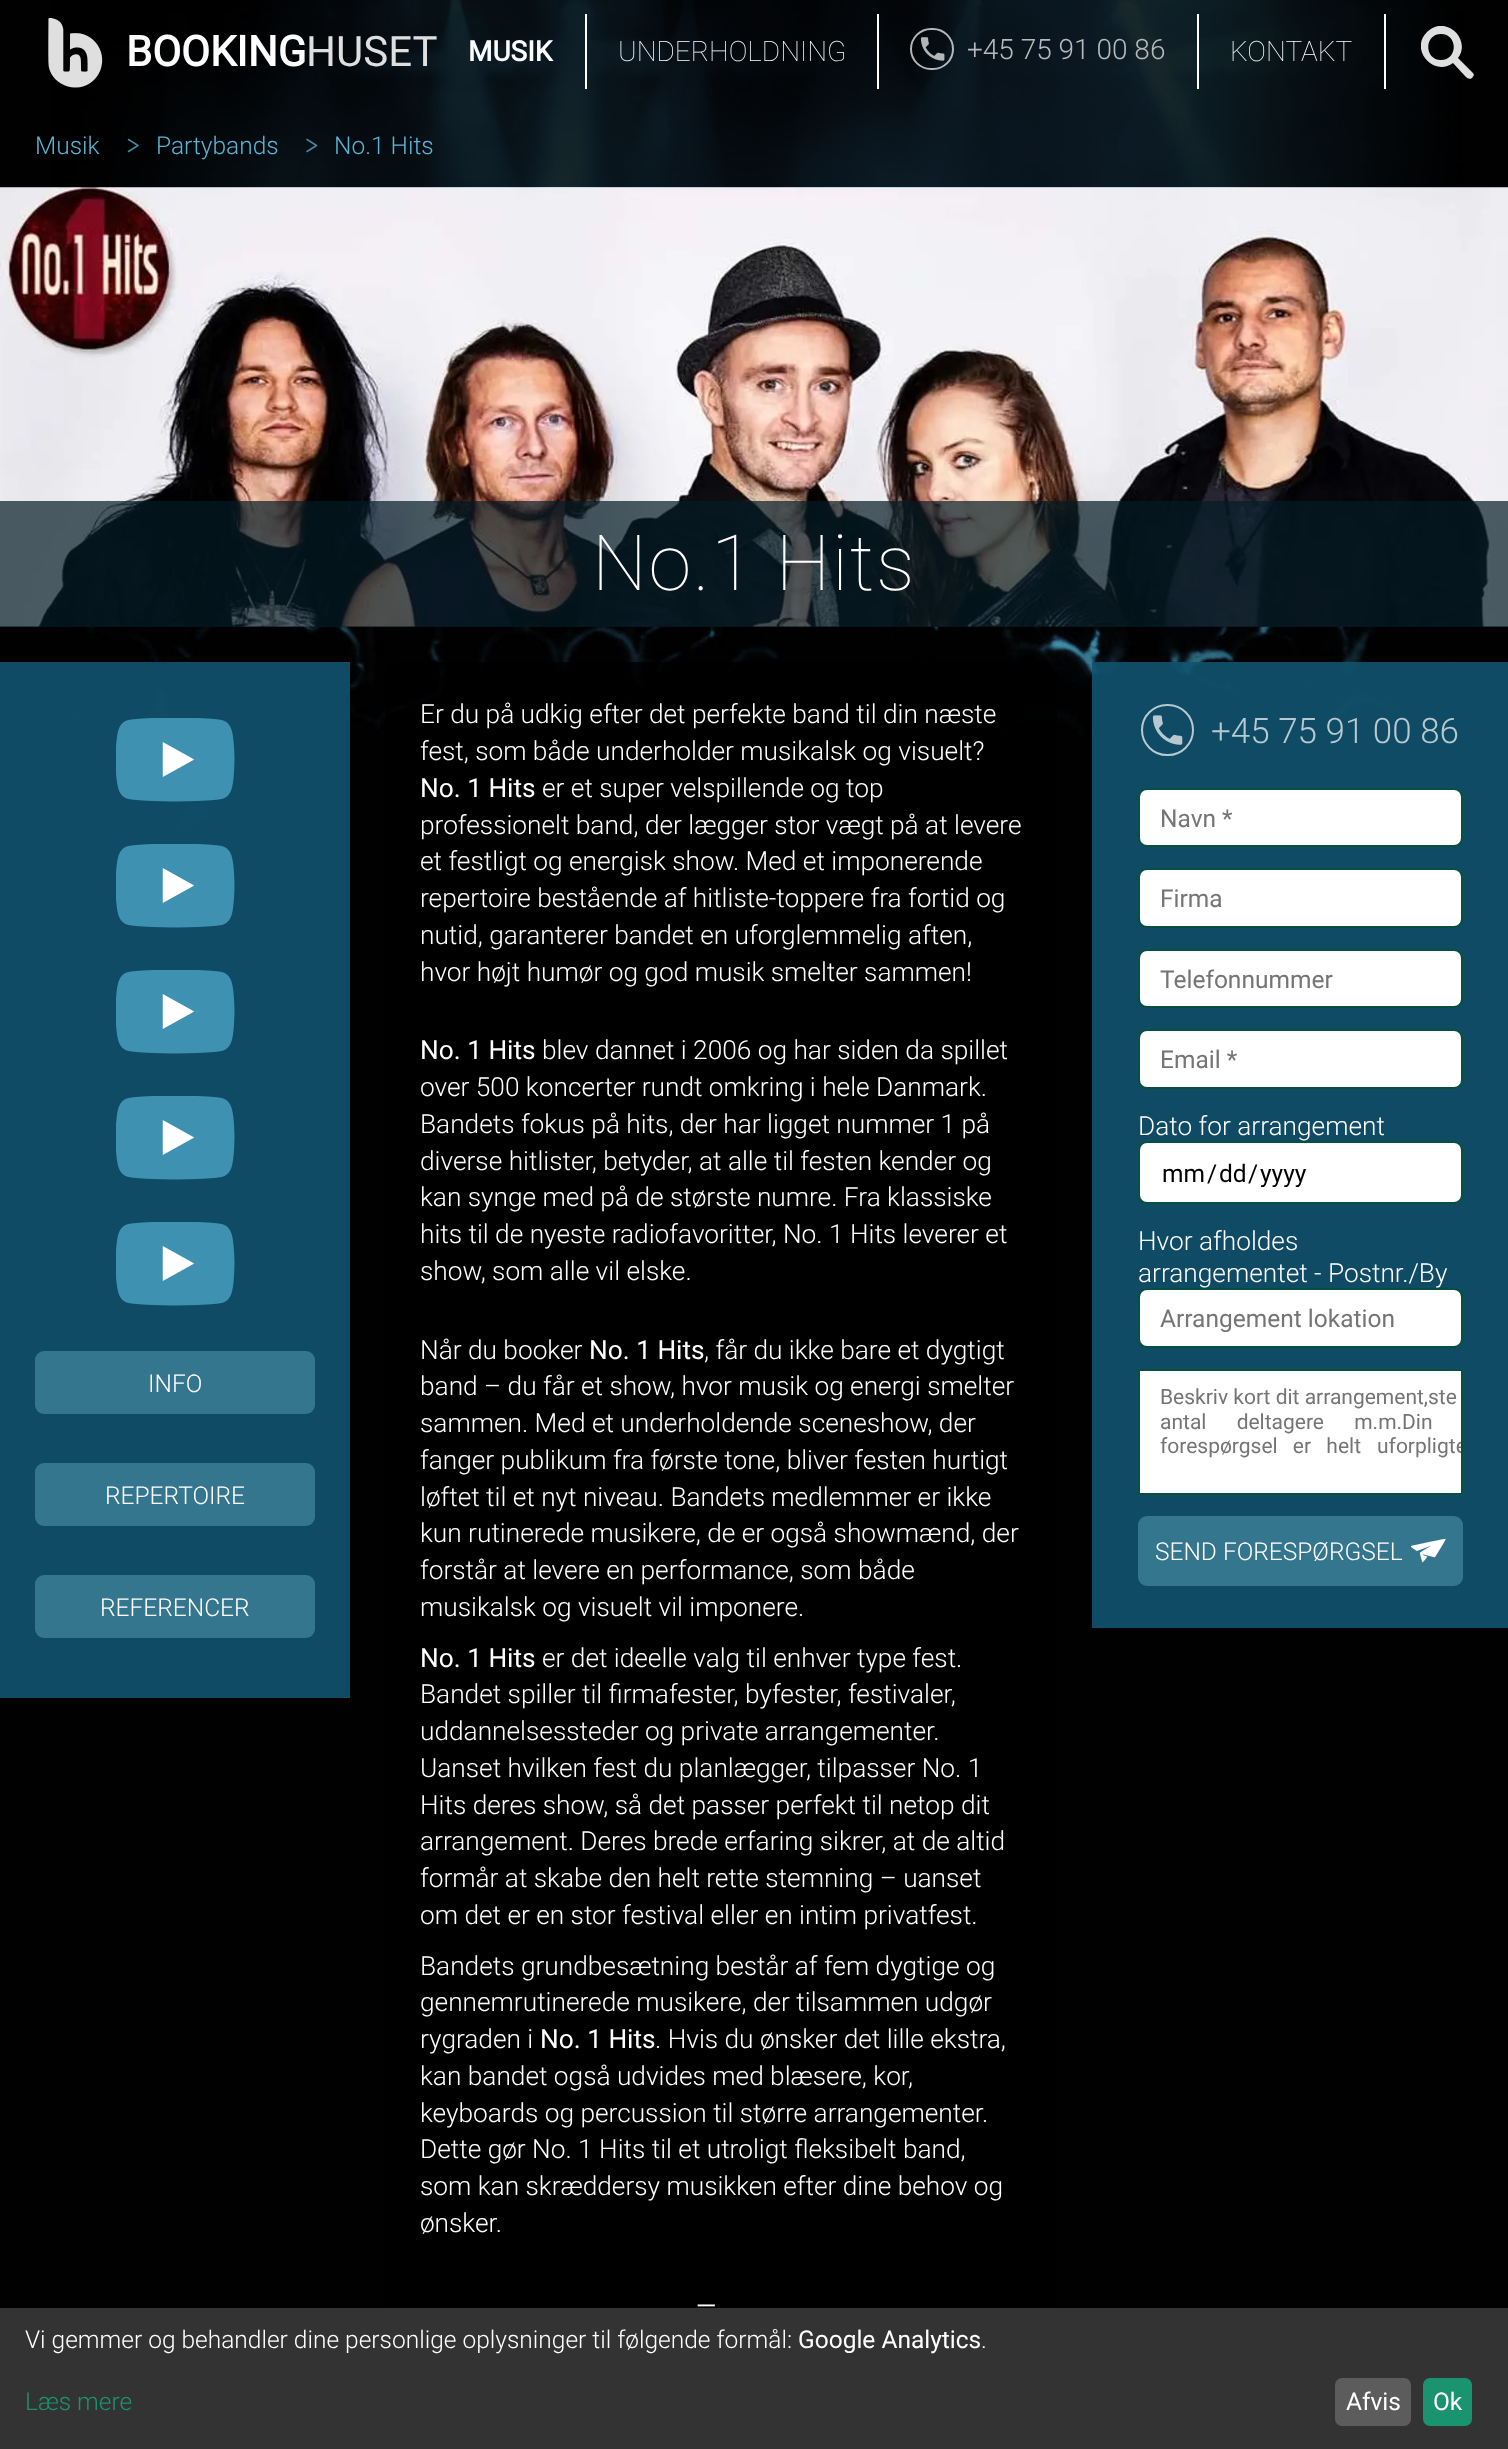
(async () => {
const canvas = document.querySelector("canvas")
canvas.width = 1508
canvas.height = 2449
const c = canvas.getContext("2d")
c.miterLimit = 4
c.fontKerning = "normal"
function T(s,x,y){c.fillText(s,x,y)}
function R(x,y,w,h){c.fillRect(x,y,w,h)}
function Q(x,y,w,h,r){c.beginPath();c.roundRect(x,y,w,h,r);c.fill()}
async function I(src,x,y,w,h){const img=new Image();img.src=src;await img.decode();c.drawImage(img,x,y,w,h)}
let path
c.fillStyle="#010101"
R(0,0,1508,2449)
await I("1.png",51,0,1412,838)
c.fillStyle="#000000cc"
R(51,0,1412,187)
await I("2.png",48,18,55,70)
c.font="bold 42px Roboto"
c.fillStyle="#fff"
T("BOOKING",126,66)
c.font="42px Roboto"
c.fillStyle="#dfdfdf"
T("HUSET",306,66)
c.fillStyle="#fff"
R(585,14,2,75)
c.font="bold 28px Roboto"
T("MUSIK",468,61)
R(877,14,2,75)
c.font="100 28px Roboto"
T("UNDERHOLDNING",618,61)
R(1197,14,2,75)
await I("3.png",920,37,25,24)
c.beginPath()
c.roundRect(911,29,42,40,20)
c.strokeStyle="#ffffffb3"
c.lineWidth=2
c.stroke()
c.font="300 28px Roboto"
c.fillStyle="#b6babd"
T("+45 75 91 00 86",967,59)
c.fillStyle="#fff"
R(1384,14,2,75)
c.font="100 28px Roboto"
T("KONTAKT",1230,61)
c.save()
c.beginPath()
c.rect(1421,26,53,53)
c.clip()
c.fillStyle="#dfdfdf"
path = new Path2D("M1473 73l-15-15c14-19-13-44-31-26c-18 18 7 45 26 31l12 13c2 2 4 4 7 2l2-3zm-32-13c-17 0-17-26 0-26c17 0 17 26 0 26z")
c.fill(path)
c.restore()
path = new Path2D("M138 145.5l-9.5 6m0-12l9.5 6")
c.strokeStyle="#4588a1"
c.lineWidth=1.5
c.lineCap="round"
c.lineJoin="bevel"
c.stroke(path)
c.font="300 24.5px Roboto"
c.fillStyle="#5ab4d5"
T("Musik",35,154)
path = new Path2D("M316.5 145.5l-9.5 6m0-12l9.5 6")
c.stroke(path)
T("Partybands",156,154)
T("No.1 Hits",334,154)
await I("4.png",0,187,1508,440)
c.fillStyle="#041b25b3"
R(0,501,1508,126)
c.letterSpacing="1.75px"
c.font="100 77.5px Roboto"
c.fillStyle="#fff"
T("No.1 Hits",592,590)
c.fillStyle="#000000cc"
R(76,662,274,176)
c.fillStyle="#1e95c880"
R(0,662,350,1036)
await I("5.png",116,718,119,84)
await I("6.png",116,844,119,84)
await I("6.png",116,970,119,84)
await I("6.png",116,1096,119,84)
await I("6.png",116,1222,119,84)
c.fillStyle="#35768f"
Q(35,1351,280,63,9)
c.letterSpacing="0px"
c.font="300 24.5px Roboto"
c.fillStyle="#fff"
T("INFO",148,1392)
c.fillStyle="#35768f"
Q(35,1463,280,63,9)
c.fillStyle="#fff"
T("REPERTOIRE",105,1504)
c.fillStyle="#35768f"
Q(35,1575,280,63,9)
c.fillStyle="#fff"
T("REFERENCER",100,1616)
c.fillStyle="#000000cc"
path = new Path2D("M403 662h636c10 0 18 8 18 18v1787h-672v-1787c0-10 8-18 18-18z")
c.fill(path)
c.font="300 26.25px Roboto"
c.fillStyle="#fff"
T("Er du på udkig efter det perfekte band til din næste",420,723)
T("fest, som både underholder musikalsk og visuelt?",420,760)
c.font="26.25px Roboto"
T("No. 1 Hits",420,797)
c.font="300 26.25px Roboto"
T("er et super velspillende og top",542,797)
T("professionelt band, der lægger stor vægt på at levere",420,834)
T("et festligt og energisk show. Med et imponerende",420,870)
T("repertoire bestående af hitliste-toppere fra fortid og",420,907)
T("nutid, garanterer bandet en uforglemmelig aften,",420,944)
T("hvor højt humør og god musik smelter sammen!",420,981)
c.font="26.25px Roboto"
T("No. 1 Hits",420,1059)
c.font="300 26.25px Roboto"
T("blev dannet i 2006 og har siden da spillet",542,1059)
T("over 500 koncerter rundt omkring i hele Danmark.",420,1096)
T("Bandets fokus på hits, der har ligget nummer 1 på",420,1133)
T("diverse hitlister, betyder, at alle til festen kender og",420,1170)
T("kan synge med på de største numre. Fra klassiske",420,1206)
T("hits til de nyeste radiofavoritter, No. 1 Hits leverer et",420,1243)
T("show, som alle vil elske.",420,1280)
T("Når du booker",420,1359)
c.font="26.25px Roboto"
T("No. 1 Hits",589,1359)
c.font="300 26.25px Roboto"
T(", får du ikke bare et dygtigt",704,1359)
T("band – du får et show, hvor musik og energi smelter",420,1395)
T("sammen. Med et underholdende sceneshow, der",420,1432)
T("fanger publikum fra første tone, bliver festen hurtigt",420,1469)
T("løftet til et nyt niveau. Bandets medlemmer er ikke",420,1506)
T("kun rutinerede musikere, de er også showmænd, der",420,1542)
T("forstår at levere en performance, som både",420,1579)
T("musikalsk og visuelt vil imponere.",420,1616)
c.font="26.25px Roboto"
T("No. 1 Hits",420,1667)
c.font="300 26.25px Roboto"
T("er det ideelle valg til enhver type fest.",542,1667)
T("Bandet spiller til firmafester, byfester, festivaler,",420,1703)
T("uddannelsessteder og private arrangementer.",420,1740)
T("Uanset hvilken fest du planlægger, tilpasser No. 1",420,1777)
T("Hits deres show, så det passer perfekt til netop dit",420,1814)
T("arrangement. Deres brede erfaring sikrer, at de altid",420,1850)
T("formår at skabe den helt rette stemning – uanset",420,1887)
T("om det er en stor festival eller en intim privatfest.",420,1924)
T("Bandets grundbesætning består af fem dygtige og",420,1975)
T("gennemrutinerede musikere, der tilsammen udgør",420,2011)
T("rygraden i",420,2048)
c.font="26.25px Roboto"
T("No. 1 Hits",540,2048)
c.font="300 26.25px Roboto"
T(". Hvis du ønsker det lille ekstra,",655,2048)
T("kan bandet også udvides med blæsere, kor,",420,2085)
T("keyboards og percussion til større arrangementer.",420,2122)
T("Dette gør No. 1 Hits til et utroligt fleksibelt band,",420,2158)
T("som kan skræddersy musikken efter dine behov og",420,2195)
T("ønsker.",420,2232)
c.font="300 35px Roboto"
T("–",695,2318)
c.fillStyle="#000000cc"
R(1092,662,348,143)
c.fillStyle="#1e95c880"
R(1092,662,416,966)
await I("7.png",1152,715,31,30)
c.beginPath()
c.roundRect(1142,705,51,50,25)
c.strokeStyle="#b7c9d1"
c.lineWidth=2
c.lineJoin="miter"
c.stroke()
c.fillStyle="#b7c9d1"
T("+45 75 91 00 86",1211,743)
c.fillStyle="#fff"
c.beginPath()
c.roundRect(1139,789,323,57,8)
c.fill()
c.strokeStyle="#07503c"
c.stroke()
c.font="24.5px Roboto"
c.fillStyle="#757575"
T("Navn *",1160,827)
c.fillStyle="#fff"
c.beginPath()
c.roundRect(1139,869,323,58,8)
c.fill()
c.stroke()
c.fillStyle="#757575"
T("Firma",1160,907)
c.fillStyle="#fff"
c.beginPath()
c.roundRect(1139,950,323,57,8)
c.fill()
c.stroke()
c.fillStyle="#757575"
T("Telefonnummer",1160,988)
c.fillStyle="#fff"
c.beginPath()
c.roundRect(1139,1030,323,58,8)
c.fill()
c.stroke()
c.fillStyle="#757575"
T("Email *",1160,1068)
c.font="300 26.25px Roboto"
c.fillStyle="#fff"
T("Dato for arrangement",1138,1135)
c.beginPath()
c.roundRect(1139,1142,323,61,8)
c.fill()
c.stroke()
c.font="24.5px Roboto"
c.fillStyle="#000"
T("mm",1162,1182)
T("/",1207,1182)
T("dd",1219,1182)
T("/",1248,1182)
c.save()
c.beginPath()
c.rect(1160,1159,249,28)
c.clip()
T("yyyy",1260,1182)
c.restore()
c.font="300 26.25px Roboto"
c.fillStyle="#fff"
T("Hvor afholdes",1138,1250)
T("arrangementet - Postnr./By",1138,1282)
c.beginPath()
c.roundRect(1139,1289,323,58,8)
c.fill()
c.stroke()
c.font="24.5px Roboto"
c.fillStyle="#757575"
T("Arrangement lokation",1160,1327)
c.fillStyle="#fff"
c.beginPath()
c.rect(1139,1370,323,124)
c.fill()
c.stroke()
c.font="21px Roboto"
c.fillStyle="#757575"
T("Beskriv kort dit arrangement,ste",1160,1404)
c.wordSpacing="25px"
T("antal deltagere m.m.",1160,1429)
c.wordSpacing="0px"
T("Din",1402,1429)
c.wordSpacing="10px"
T("forespørgsel er helt",1160,1453)
c.save()
c.beginPath()
c.rect(1139,1370,322,123)
c.clip()
c.wordSpacing="0px"
T("uforpligte",1377,1453)
c.restore()
c.fillStyle="#35768f"
Q(1138,1516,325,70,9)
c.wordSpacing="0px"
c.font="300 24.5px Roboto"
c.fillStyle="#fff"
T("SEND FORESPØRGSEL",1155,1560)
await I("8.png",1411,1538,35,25)
c.fillStyle="#333"
R(0,2308,1508,141)
c.fillStyle="#fff"
T("Vi gemmer og behandler dine personlige oplysninger til følgende formål:",25,2348)
c.font="24.5px Roboto"
T("Google Analytics",798,2348)
c.font="300 24.5px Roboto"
T(".",981,2348)
c.fillStyle="#1a936f"
T("Læs mere",25,2410)
c.fillStyle="#5c5c5c"
Q(1335,2378,76,48,7)
c.font="24.5px Roboto"
c.fillStyle="#fff"
T("Afvis",1346,2410)
c.fillStyle="#1a936f"
Q(1423,2378,49,48,7)
c.fillStyle="#fff"
T("Ok",1433,2410)
})()
